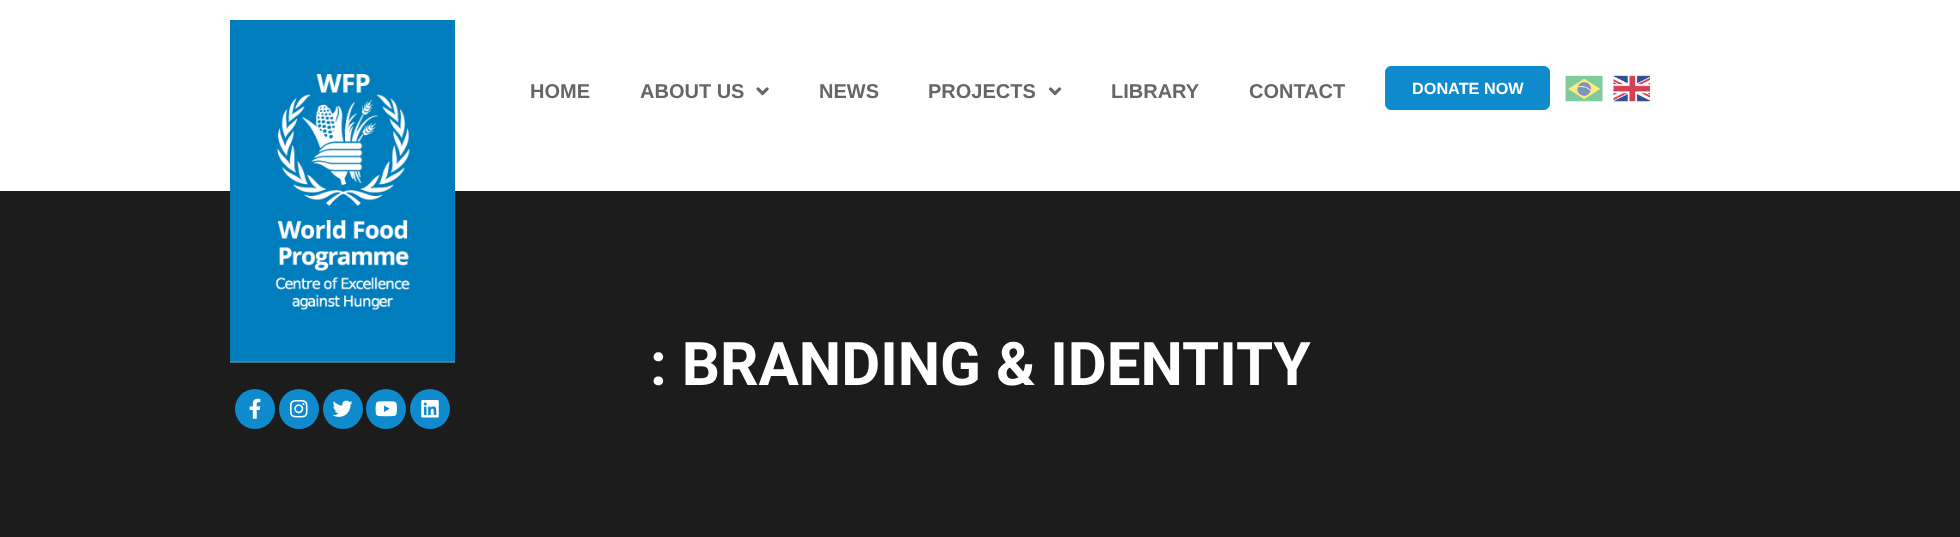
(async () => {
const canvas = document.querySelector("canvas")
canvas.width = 1960
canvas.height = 537
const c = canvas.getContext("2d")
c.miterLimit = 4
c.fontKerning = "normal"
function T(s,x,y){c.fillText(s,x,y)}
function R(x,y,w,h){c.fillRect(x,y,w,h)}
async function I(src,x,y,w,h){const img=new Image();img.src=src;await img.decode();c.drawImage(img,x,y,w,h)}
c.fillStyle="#fff"
R(0,0,1960,537)
c.fillStyle="#1c1c1c"
R(0,191,1960,346)
await I("1.png",230,20,225,343)
c.fillStyle="#0f8bcd"
c.beginPath()
c.arc(255,409,20,0,7)
c.fill()
await I("2.png",249,398,12,21)
c.beginPath()
c.arc(299,409,20,0,7)
c.fill()
await I("3.png",290,399,18,19)
c.beginPath()
c.arc(343,409,20,0,7)
c.fill()
await I("4.png",332,400,21,17)
c.beginPath()
c.arc(386,409,20,0,7)
c.fill()
await I("5.png",375,401,22,16)
c.beginPath()
c.arc(430,409,20,0,7)
c.fill()
await I("6.png",421,400,18,18)
c.font="bold 20px Liberation Sans"
c.fillStyle="#666"
T("HOME",530,98)
T("ABOUT US",640,98)
await I("7.png",756,87,13,9)
T("NEWS",819,98)
T("PROJECTS",928,98)
await I("8.png",1048,87,14,9)
T("LIBRARY",1111,98)
T("CONTACT",1249,98)
c.fillStyle="#0f8bcd"
c.beginPath()
c.roundRect(1385.5,66.5,164,43,5.5)
c.fill()
c.strokeStyle="#0f8bcd"
c.stroke()
c.font="bold 16.25px Liberation Sans"
c.fillStyle="#fff"
T("DONATE NOW",1412,94)
await I("9.png",1565,75,38,27)
await I("10.png",1613,75,37,27)
c.font="bold 60px Roboto"
T(": BRANDING & IDENTITY",650,385)
})()
